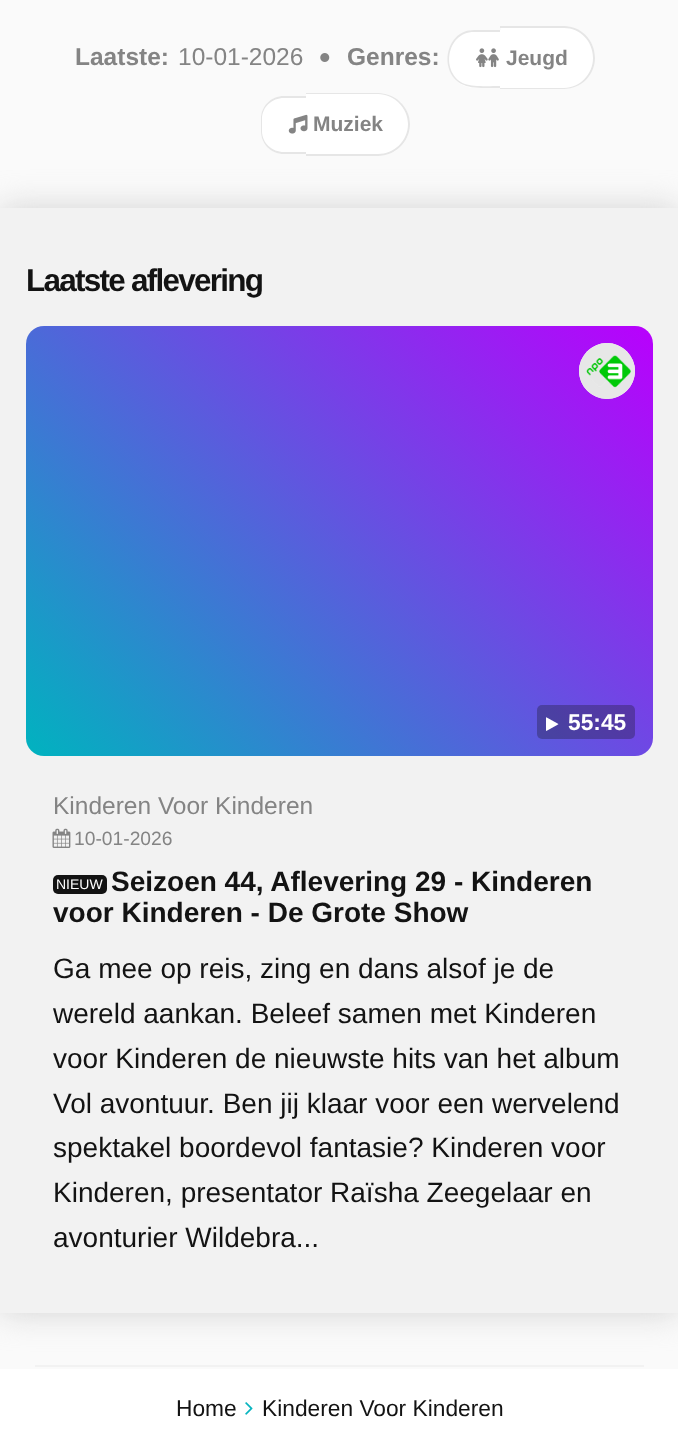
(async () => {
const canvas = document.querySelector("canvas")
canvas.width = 678
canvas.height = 1446
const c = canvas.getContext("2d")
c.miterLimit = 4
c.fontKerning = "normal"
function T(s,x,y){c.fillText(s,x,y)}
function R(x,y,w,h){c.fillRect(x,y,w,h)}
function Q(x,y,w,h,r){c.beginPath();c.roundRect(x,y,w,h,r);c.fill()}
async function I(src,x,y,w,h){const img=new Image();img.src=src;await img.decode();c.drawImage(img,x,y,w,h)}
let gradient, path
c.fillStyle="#fafafa"
R(0,0,678,1446)
c.font="bold 24.5px Liberation Sans"
c.fillStyle="#848484"
T("Laatste:",75,65)
c.font="24.5px Liberation Sans"
T("10-01-2026",178,65)
c.font="bold 24.5px Liberation Sans"
T("Genres:",347,65)
c.fillStyle="#fff"
c.beginPath()
c.roundRect(448,30,53,58,[26.5,0,0,26.5])
c.fill()
c.fillStyle="#e6e6e6"
path = new Path2D("M474 30h26v58c-9 0-28 1-36-3c-26-10-20-55 10-55zm0 2h26v54c-9 0-27 1-35-2c-25-10-19-52 9-52z")
c.fill(path,"evenodd")
c.fillStyle="#fff"
c.beginPath()
c.roundRect(501,26,94,63,[0,31.5,31.5,0])
c.fill()
c.fillStyle="#e6e6e6"
path = new Path2D("M500 26h64c17 0 31 14 31 32c0 17-14 31-31 31h-64zm0 2h64c16 0 29 13 29 30c0 16-13 30-29 30h-64z")
c.fill(path,"evenodd")
await I("1.png",476,48,23,20)
c.font="bold 21px Liberation Sans"
c.fillStyle="#848484"
T("Jeugd",506,65)
c.fillStyle="#fff"
c.beginPath()
c.roundRect(261,96,45,58,[22.5,0,0,22.5])
c.fill()
c.fillStyle="#e6e6e6"
path = new Path2D("M284 96h22v58h-22c-13 0-23-10-23-23v-12c0-13 10-23 23-23zm0 2h22v54h-22c-12 0-22-9-22-21v-12c0-12 10-21 22-21z")
c.fill(path,"evenodd")
c.fillStyle="#fff"
c.beginPath()
c.roundRect(306,93,104,63,[0,31.5,31.5,0])
c.fill()
c.fillStyle="#e6e6e6"
path = new Path2D("M306 93h72c17 0 32 14 32 31c0 18-15 32-32 32h-72zm0 1h72c16 0 30 14 30 30c0 17-14 30-30 30h-72z")
c.fill(path,"evenodd")
await I("2.png",288,114,20,20)
c.fillStyle="#848484"
T("Muziek",313,131)
await I("3.png",320,53,10,9)
c.fillStyle="#d3d3d3"
c.filter="blur(16px)"
c.beginPath()
c.rect(0,208,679,1105)
c.fill()
c.filter="none"
c.fillStyle="#f2f2f2"
R(0,208,678,1105)
c.letterSpacing="-1.75px"
c.font="bold 31.5px Liberation Sans"
c.fillStyle="#131313"
T("Laatste aflevering",26,291)
gradient = c.createLinearGradient(75,805,604,277)
gradient.addColorStop(0,"#00b3bf")
gradient.addColorStop(1,"#b900fd")
c.fillStyle = gradient
Q(26,326,627,430,18)
c.fillStyle="#fff"
c.beginPath()
c.arc(607,371,28,0,7)
c.fill()
c.fillStyle="#e7e7e7"
path = new Path2D("M607 343c15 0 28 13 28 28c0 15-13 28-28 28c-15 0-28-13-28-28c0-15 13-28 28-28z")
c.fill(path)
await I("4.png",586,355,45,33)
c.fillStyle="#1313134d"
Q(537,705,98,34,5)
await I("5.png",546,717,13,14)
c.letterSpacing="0px"
c.font="bold 22.75px Liberation Sans"
c.fillStyle="#fff"
T("55:45",568,730)
c.font="24.5px Liberation Sans"
c.fillStyle="#848484"
T("Kinderen Voor Kinderen",53,814)
await I("6.png",52,828,19,20)
c.font="19.25px Liberation Sans"
T("10-01-2026",74,845)
c.font="bold 28px Liberation Sans"
c.fillStyle="#131313"
T("Seizoen 44, Aflevering 29 - Kinderen",111,891)
T("voor Kinderen - De Grote Show",53,922)
Q(53,875,54,19,5)
c.font="14px Liberation Sans"
c.fillStyle="#fff"
T("NIEUW",56,889)
c.font="28px Liberation Sans"
c.fillStyle="#131313"
T("Ga mee op reis, zing en dans alsof je de",53,978)
T("wereld aankan. Beleef samen met Kinderen",53,1023)
T("voor Kinderen de nieuwste hits van het album",53,1068)
T("Vol avontuur. Ben jij klaar voor een wervelend",53,1113)
T("spektakel boordevol fantasie? Kinderen voor",53,1157)
T("Kinderen, presentator Raïsha Zeegelaar en",53,1202)
T("avonturier Wildebra...",53,1247)
c.fillStyle="#f2f2f2"
R(35,1365,609,2)
c.fillStyle="#fff"
R(0,1369,678,77)
c.font="22.75px Liberation Sans"
c.fillStyle="#131313"
T("Home",176,1416)
await I("7.png",245,1402,8,13)
T("Kinderen Voor Kinderen",262,1416)
})()
